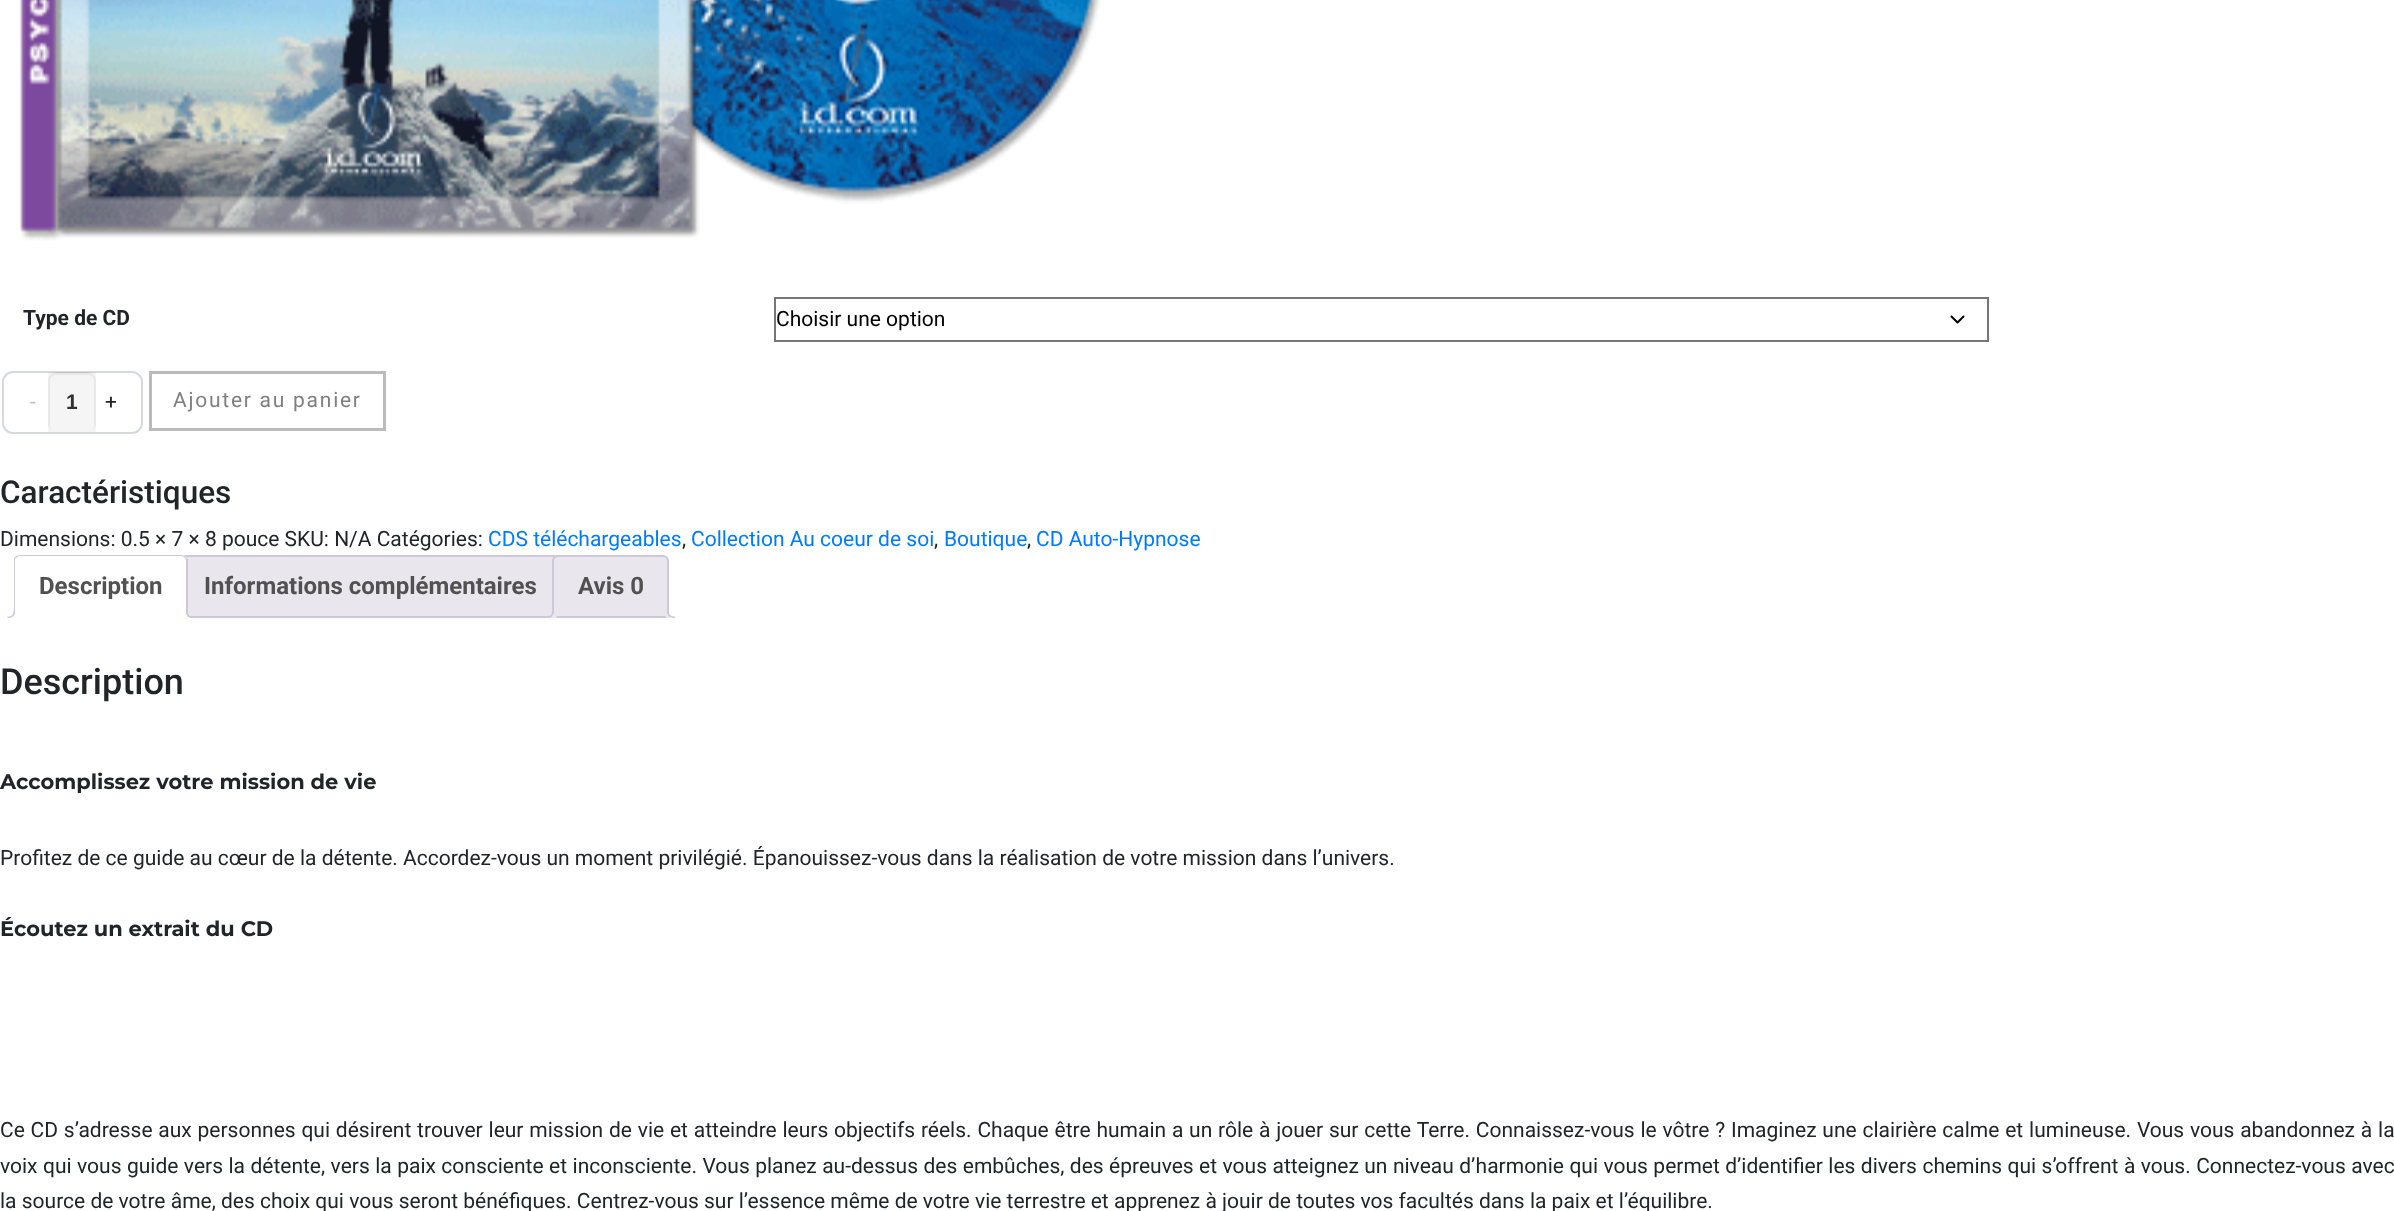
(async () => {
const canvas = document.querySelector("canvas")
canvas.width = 2394
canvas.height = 1211
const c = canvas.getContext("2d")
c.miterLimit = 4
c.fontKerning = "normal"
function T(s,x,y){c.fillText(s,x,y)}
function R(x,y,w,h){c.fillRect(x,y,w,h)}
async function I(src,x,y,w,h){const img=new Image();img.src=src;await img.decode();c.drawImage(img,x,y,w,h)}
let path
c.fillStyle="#fff"
R(0,0,2394,1211)
await I("1.png",19,0,1082,241)
c.font="bold 21px Roboto"
c.fillStyle="#212529"
T("Type de CD",23,325)
path = new Path2D("M1951.5 316.5l6 6l6-6")
c.strokeStyle="#000"
c.lineWidth=2
c.lineCap="round"
c.lineJoin="round"
c.stroke(path)
c.strokeStyle="#767676"
c.lineJoin="miter"
c.strokeRect(775,298,1213,43)
c.font="21px Roboto"
c.fillStyle="#000"
T("Choisir une option",776,326)
c.beginPath()
c.roundRect(3,372,139,61,10)
c.strokeStyle="#d6d9dd"
c.stroke()
c.fillStyle="#bcbebf"
T("-",30,409)
c.fillStyle="#0000000a"
R(48,372,48,60)
c.fillStyle="#0000000d"
path = new Path2D("M56 375h32c4 0 6 3 6 6v45c0 3-2 6-6 6c4 0 8-4 8-8v-44c0-4-4-8-8-8h-32c-4 0-8 4-8 8v44c0 4 4 8 8 8c-4 0-6-3-6-6v-45c0-3 2-6 6-6z")
c.fill(path)
c.font="bold 21px Liberation Sans"
c.fillStyle="#313131"
T("1",66,409)
c.font="21px Roboto"
c.fillStyle="#212529"
T("+",105,409)
c.strokeStyle="#bbb"
c.lineWidth=3
c.strokeRect(150.5,372.5,234,57)
c.letterSpacing="1.75px"
c.fillStyle="#808080"
T("Ajouter au panier",173,407)
c.letterSpacing="0px"
c.font="500 31.5px Roboto"
c.fillStyle="#212529"
T("Caractéristiques",0,503)
c.font="21px Roboto"
T("Dimensions: 0.5 × 7 × 8 pouce SKU: N/A Catégories:",0,546)
c.fillStyle="#007bff"
T("CDS téléchargeables",488,546)
c.fillStyle="#212529"
T(",",682,546)
c.fillStyle="#007bff"
T("Collection Au coeur de soi",691,546)
c.fillStyle="#212529"
T(",",934,546)
c.fillStyle="#007bff"
T("Boutique",944,546)
c.fillStyle="#212529"
T(",",1027,546)
c.fillStyle="#007bff"
T("CD Auto-Hypnose",1036,546)
c.fillStyle="#e9e6ed"
c.beginPath()
c.roundRect(180,556,382,61,[5,5,0,0])
c.fill()
c.strokeStyle="#cfc8d8"
c.lineWidth=2
c.stroke()
c.fillStyle="#fff"
c.beginPath()
c.roundRect(14,555,174,63,[6,6,0,0])
c.fill()
c.fillStyle="#cfc8d8"
path = new Path2D("M20 555c-2 0-4 1-5 2l1 1l3-2h163c1 0 2 1 3 2l1-1c-1-1-3-2-4-2z")
c.fill(path)
path = new Path2D("M188 559v59l-2-2v-55c0-1 0-2-1-3l1-1z")
c.fill(path)
c.fillStyle="#fff"
path = new Path2D("M188 618l-2-2h-170l-2 2z")
c.fill(path)
c.fillStyle="#cfc8d8"
path = new Path2D("M15 557c-1 1-1 3-1 4v57l2-2h-1v-55c0-1 0-2 1-3z")
c.fill(path)
c.font="bold 24px Roboto"
c.fillStyle="#515151"
T("Description",39,594)
c.save()
c.beginPath()
c.rect(0,555,2394,63)
c.clip()
c.fillStyle="#fff"
path = new Path2D("M11 617.5v3.5c4.5 0 7-2.5 7-7h-3.5c-.5 1.5-2 3-3.5 3.5z")
c.fill(path)
c.restore()
c.fillStyle="#cfc8d8"
path = new Path2D("M7.5 610.5h7.5c0 5.5-2 7.5-7.5 7.5zm0 0h6c0 4.5-1.5 6-6 6z")
c.fill(path,"evenodd")
c.save()
c.beginPath()
c.rect(0,555,2394,63)
c.clip()
c.fillStyle="#fff"
path = new Path2D("M183 614c0 5.5 3 7 8 7v-3c-2-.5-4-2-4.5-4z")
c.fill(path)
c.restore()
path = new Path2D("M186 610.5h7.5v7.5c-4 0-7.5-1.5-7.5-6zm1.5 0h6v6c-3 0-6-1-6-4.5z")
c.fill(path,"evenodd")
c.fillStyle="#515151"
T("Informations complémentaires",204,594)
c.fillStyle="#e9e6ed"
c.beginPath()
c.roundRect(553,556,115,61,[5,5,0,0])
c.fill()
c.stroke()
c.fillStyle="#515151"
T("Avis 0",578,594)
c.save()
c.beginPath()
c.rect(0,555,2394,63)
c.clip()
c.fillStyle="#e9e6ed"
path = new Path2D("M549 618v3c5 0 8-1.5 8-7h-4c-.5 2-2 3.5-4 4z")
c.fill(path)
c.restore()
c.fillStyle="#cfc8d8"
path = new Path2D("M546 610.5h7.5c0 5.5-2 7.5-7.5 7.5zm0 0h6c0 4.5-1.5 6-6 6z")
c.fill(path,"evenodd")
c.save()
c.beginPath()
c.rect(0,555,2394,63)
c.clip()
c.fillStyle="#e9e6ed"
path = new Path2D("M665 614c0 4.5 2.5 7 7 7v-3c-2-.5-3.5-2-4-4z")
c.fill(path)
c.restore()
path = new Path2D("M667.5 610.5h7.5v7.5c-4 0-7.5-1.5-7.5-6zm1.5 0h6v6c-3 0-6-1-6-4.5z")
c.fill(path,"evenodd")
c.font="500 36px Roboto"
c.fillStyle="#212529"
T("Description",0,694)
c.font="bold 21px Montserrat"
T("Accomplissez votre mission de vie",0,789)
c.font="21px Roboto"
T("Profitez de ce guide au cœur de la détente. Accordez-vous un moment privilégié. Épanouissez-vous dans la réalisation de votre mission dans l’univers.",0,865)
c.font="bold 21px Montserrat"
T("Écoutez un extrait du CD",0,936)
c.wordSpacing="0.6px"
c.font="21px Roboto"
T("Ce CD s’adresse aux personnes qui désirent trouver leur mission de vie et atteindre leurs objectifs réels. Chaque être humain a un rôle à jouer sur cette Terre. Connaissez-vous le vôtre ? Imaginez une clairière calme et lumineuse. Vous vous abandonnez à la",0,1137)
c.wordSpacing="0.25px"
T("voix qui vous guide vers la détente, vers la paix consciente et inconsciente. Vous planez au-dessus des embûches, des épreuves et vous atteignez un niveau d’harmonie qui vous permet d’identifier les divers chemins qui s’offrent à vous. Connectez-vous avec",0,1173)
c.wordSpacing="0px"
T("la source de votre âme, des choix qui vous seront bénéfiques. Centrez-vous sur l’essence même de votre vie terrestre et apprenez à jouir de toutes vos facultés dans la paix et l’équilibre.",0,1208)
})()
